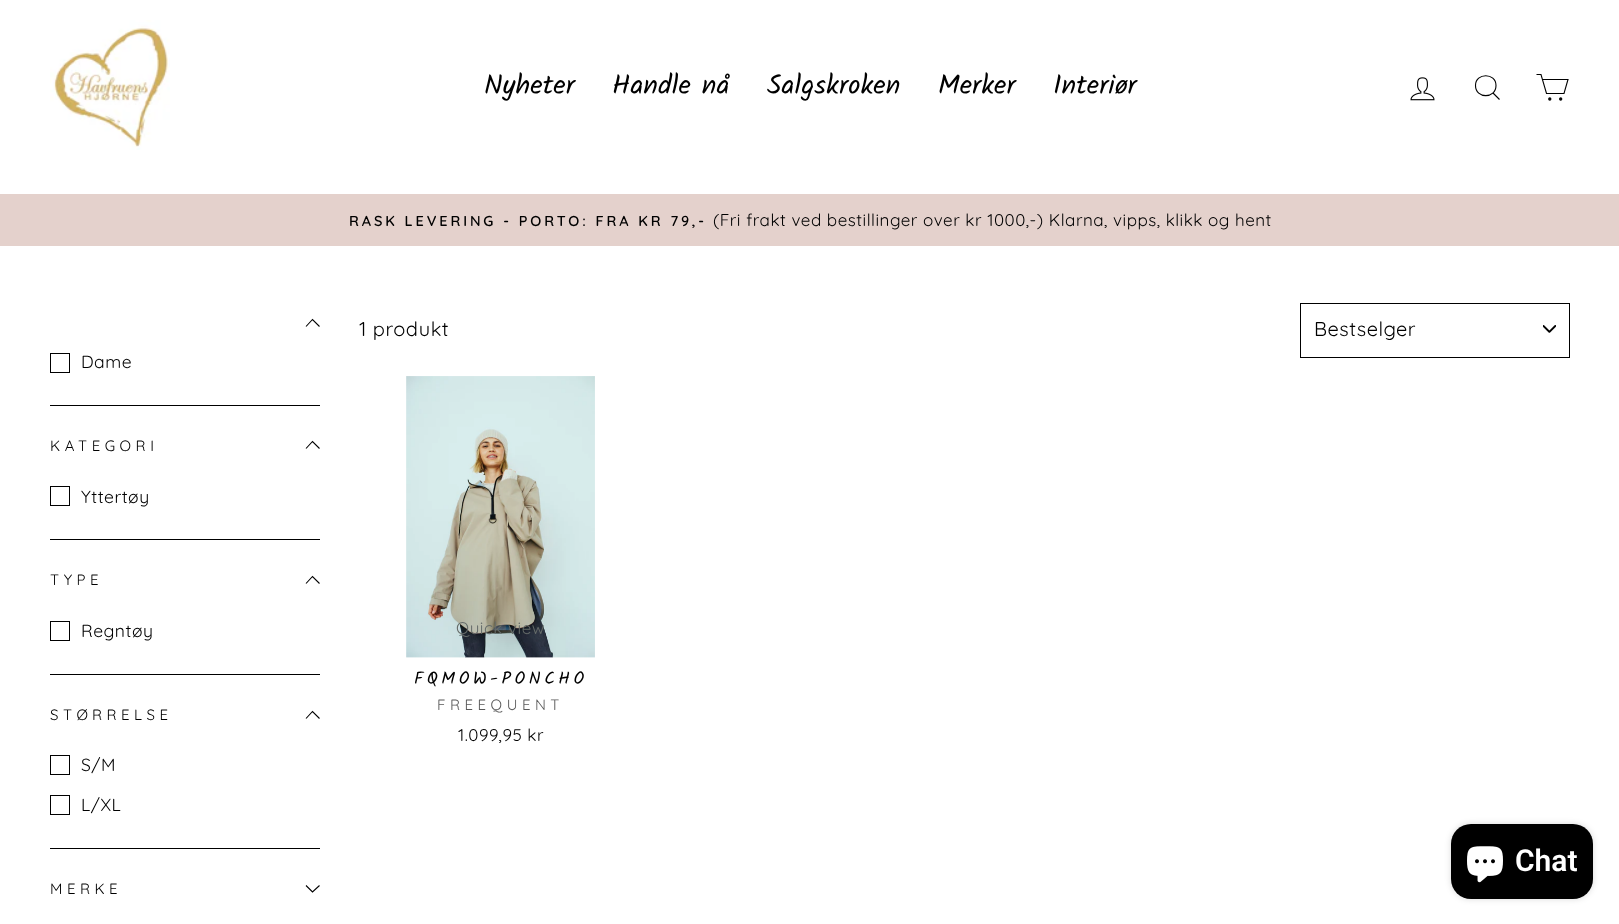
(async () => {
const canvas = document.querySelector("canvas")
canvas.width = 1619
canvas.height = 924
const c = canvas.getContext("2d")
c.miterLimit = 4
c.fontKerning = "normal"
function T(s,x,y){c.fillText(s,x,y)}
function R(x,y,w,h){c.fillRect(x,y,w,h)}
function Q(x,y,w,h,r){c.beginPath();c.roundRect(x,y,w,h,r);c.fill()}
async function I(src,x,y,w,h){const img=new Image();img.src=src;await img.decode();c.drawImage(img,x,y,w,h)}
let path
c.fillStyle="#fff"
R(0,0,1619,924)
await I("1.png",50,20,120,130)
c.font="27.5px Kalam"
c.fillStyle="#000"
T("Nyheter",484,94)
T("Handle nå",612,94)
T("Salgskroken",767,94)
T("Merker",938,94)
T("Interiør",1053,94)
await I("2.png",1410,77,25,24)
path = new Path2D("M1496 85.5c0 13.5-20.5 13.5-20.5 0c0-13 20.5-13 20.5 0zm3.5 14l-6.5-6.5")
c.strokeStyle="#000"
c.lineWidth=1.1
c.stroke(path)
path = new Path2D("M1542.5 79.5h25.5l-4 14h-17.5l-5.5-19h-4.5")
c.stroke(path)
c.beginPath()
c.arc(1549.8,99,1.1,0,7)
c.fill()
c.stroke()
c.beginPath()
c.arc(1560.7,99,1.1,0,7)
c.fill()
c.stroke()
c.fillStyle="#e4d1cc"
R(0,194,1619,52)
c.letterSpacing="2.9px"
c.font="600 14.45px Quicksand"
c.fillStyle="#000"
T("RASK LEVERING - PORTO: FRA KR 79,-",349,226)
c.letterSpacing="0.5px"
c.font="300 17px Quicksand"
T("(Fri frakt ved bestillinger over kr 1000,-) Klarna, vipps, klikk og hent",713,226)
path = new Path2D("M306 326.5l6.5-7l7 7")
c.stroke(path)
c.lineWidth=1
c.strokeRect(50.5,353.5,19,19)
c.font="300 17.5px Quicksand"
T("Dame",81,368)
R(50,405,270,1)
c.letterSpacing="4.5px"
c.font="300 15px Quicksand"
T("KATEGORI",50,451)
path = new Path2D("M306 448.5l6.5-7l7 7")
c.lineWidth=1.1
c.stroke(path)
c.lineWidth=1
c.strokeRect(50.5,486.5,19,19)
c.letterSpacing="0.5px"
c.font="300 17.5px Quicksand"
T("Yttertøy",81,503)
R(50,539,270,1)
c.letterSpacing="4.5px"
c.font="300 15px Quicksand"
T("TYPE",50,585)
path = new Path2D("M306 583.5l6.5-7l7 7")
c.lineWidth=1.1
c.stroke(path)
c.lineWidth=1
c.strokeRect(50.5,621.5,19,19)
c.letterSpacing="0.5px"
c.font="300 17.5px Quicksand"
T("Regntøy",81,637)
R(50,674,270,1)
c.letterSpacing="4.5px"
c.font="300 15px Quicksand"
T("STØRRELSE",50,720)
path = new Path2D("M306 718.5l6.5-7l7 7")
c.lineWidth=1.1
c.stroke(path)
c.lineWidth=1
c.strokeRect(50.5,755.5,19,19)
c.letterSpacing="0.5px"
c.font="300 17.5px Quicksand"
T("S/M",81,771)
c.strokeRect(50.5,795.5,19,19)
T("L/XL",81,811)
R(50,848,270,1)
c.letterSpacing="4.5px"
c.font="300 15px Quicksand"
T("MERKE",50,894)
path = new Path2D("M306 885.5l6.5 6.5l7-6.5")
c.lineWidth=1.1
c.stroke(path)
c.letterSpacing="0.5px"
c.font="300 20px Quicksand"
T("1 produkt",359,336)
await I("3.png",1543,325,13,8)
c.lineWidth=1
c.strokeRect(1300.5,303.5,269,54)
T("Bestselger",1314,336)
await I("4.png",406,376,189,282)
c.font="300 17px Quicksand"
c.fillStyle="#656b69"
T("Quick view",456,634)
c.letterSpacing="3.5px"
c.font="17.5px Kalam"
c.fillStyle="#000"
T("FQMOW-PONCHO",414,684)
c.letterSpacing="4.5px"
c.font="300 15px Quicksand"
c.fillStyle="#595959"
T("FREEQUENT",437,710)
c.letterSpacing="0.5px"
c.font="300 17px Quicksand"
c.fillStyle="#000"
T("1.099,95 kr",458,741)
c.fillStyle="#00000026"
c.filter="blur(3px)"
c.beginPath()
c.roundRect(1451,824,142,75,20)
c.fill()
c.filter="none"
c.fillStyle="#000"
Q(1451,824,142,75,20)
await I("5.png",1467,846,36,37)
c.letterSpacing="0px"
c.font="600 30px Roboto"
c.fillStyle="#fff"
T("Chat",1515,871)
})()
